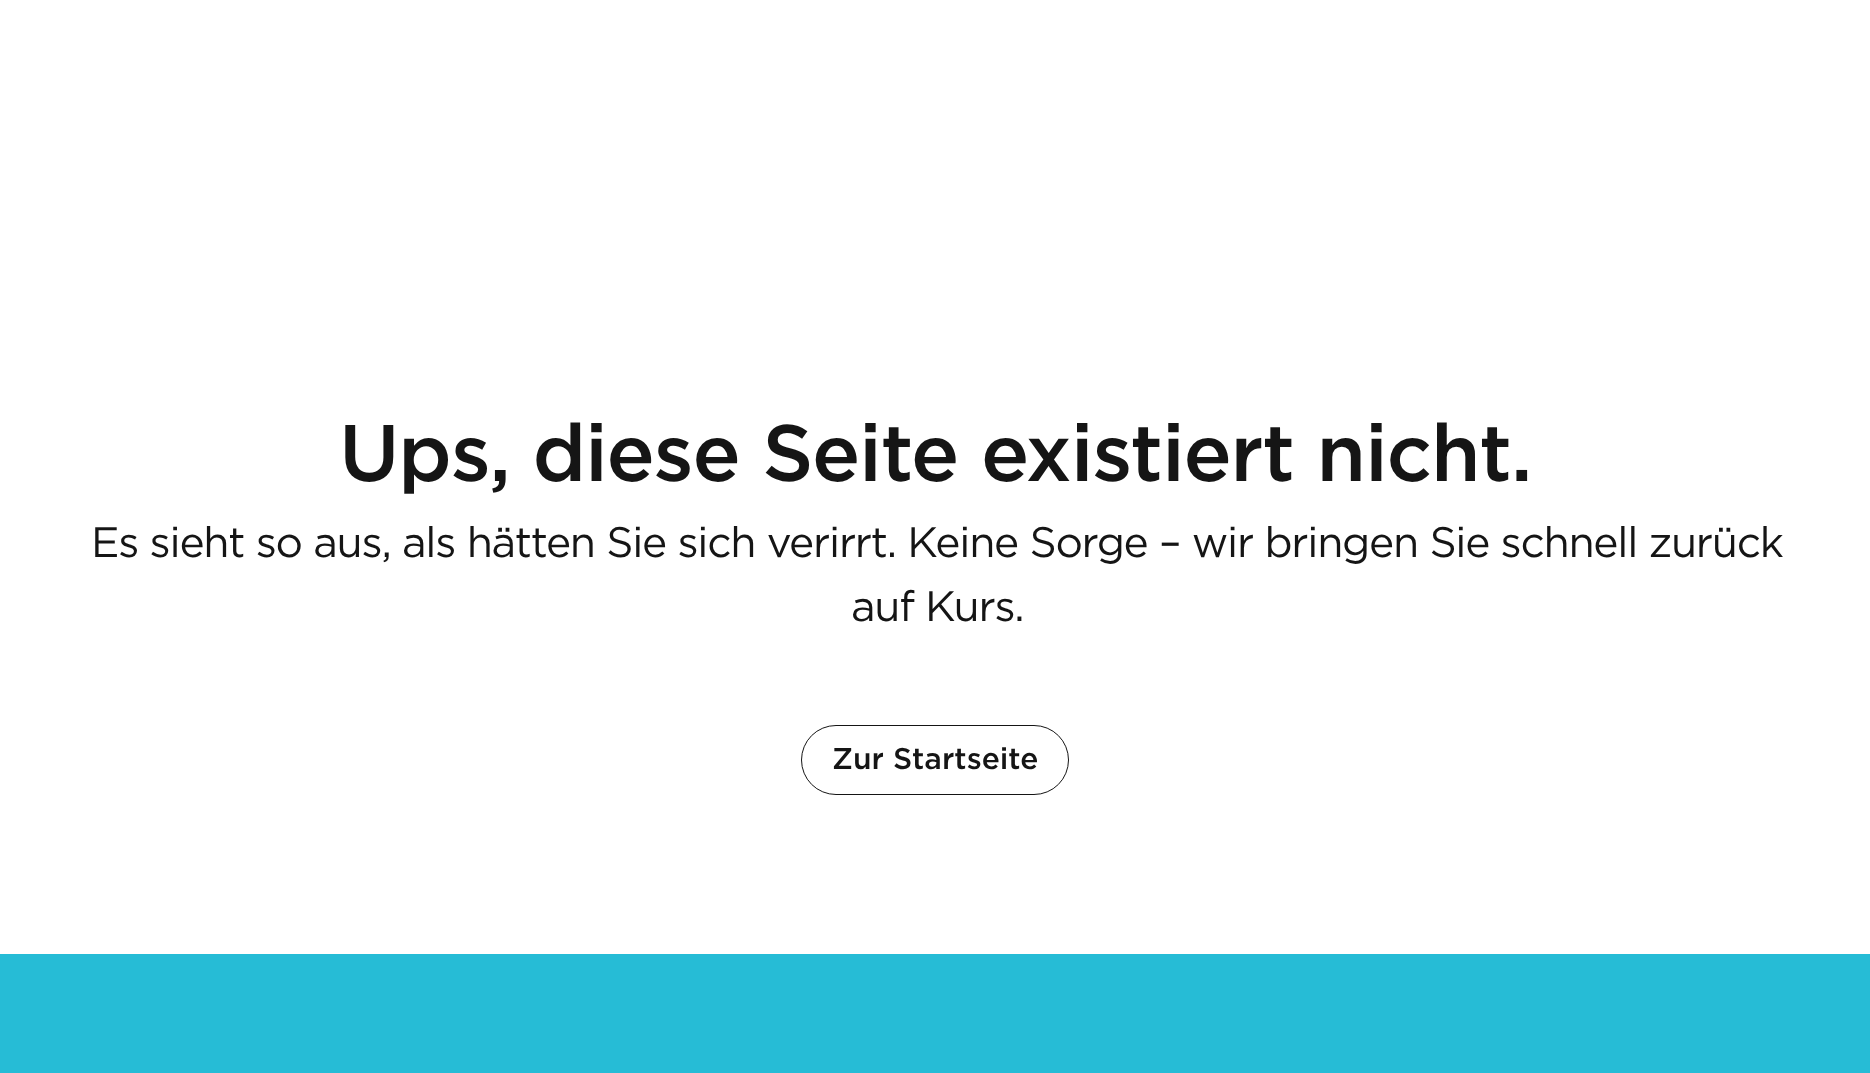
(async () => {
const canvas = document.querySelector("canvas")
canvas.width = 1870
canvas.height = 1073
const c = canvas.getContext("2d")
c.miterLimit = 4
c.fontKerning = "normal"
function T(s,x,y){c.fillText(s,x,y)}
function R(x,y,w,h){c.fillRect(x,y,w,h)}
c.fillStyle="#fff"
R(0,0,1870,1073)
c.letterSpacing="-1.25px"
c.font="500 80px Gotham"
c.fillStyle="#151515"
T("Ups, diese Seite existiert nicht.",339,481)
c.font="42.5px Gotham"
T("Es sieht so aus, als hätten Sie sich verirrt. Keine Sorge – wir bringen Sie schnell zurück",91,557)
T("auf Kurs.",851,621)
c.beginPath()
c.roundRect(801.5,725.5,267,69,34.5)
c.strokeStyle="#151515"
c.stroke()
c.letterSpacing="0px"
c.font="500 30px Gotham"
T("Zur Startseite",832,769)
c.fillStyle="#26bcd6"
R(0,954,1870,119)
})()
